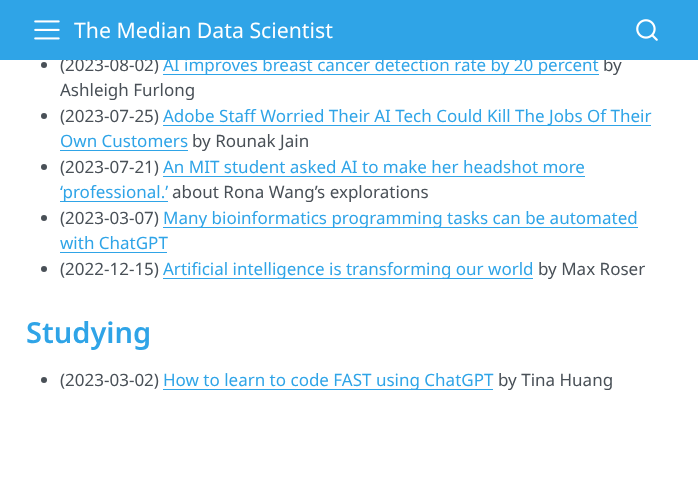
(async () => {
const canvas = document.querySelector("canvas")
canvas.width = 698
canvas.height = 486
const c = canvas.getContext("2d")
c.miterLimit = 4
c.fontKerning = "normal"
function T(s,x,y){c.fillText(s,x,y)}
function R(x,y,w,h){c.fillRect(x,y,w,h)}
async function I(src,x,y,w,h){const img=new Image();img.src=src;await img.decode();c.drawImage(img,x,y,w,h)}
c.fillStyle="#fff"
R(0,0,698,486)
c.font="17px Noto Sans"
c.fillStyle="#495057"
T("(2023-08-02)",60,71)
T("by",603,71)
c.fillStyle="#2fa4e7"
R(0,0,698,60)
await I("1.png",34,20,26,20)
c.font="21.25px Noto Sans"
c.fillStyle="#fff"
T("The Median Data Scientist",74,38)
await I("2.png",636,19,22,22)
c.fillStyle="#495057"
c.beginPath()
c.arc(44,65,3,0,7)
c.fill()
c.fillStyle="#2fa4e7"
R(163,74,436,1)
c.font="17px Noto Sans"
T("AI improves breast cancer detection rate by 20 percent",163,71)
c.fillStyle="#495057"
T("Ashleigh Furlong",60,96)
c.beginPath()
c.arc(44,116,3,0,7)
c.fill()
T("(2023-07-25)",60,122)
c.fillStyle="#2fa4e7"
R(163,125,488,1)
T("Adobe Staff Worried Their AI Tech Could Kill The Jobs Of Their",163,122)
T("Own Customers",60,147)
R(60,150,128,1)
c.fillStyle="#495057"
T("by Rounak Jain",192,147)
c.beginPath()
c.arc(44,167,3,0,7)
c.fill()
T("(2023-07-21)",60,173)
c.fillStyle="#2fa4e7"
T("An MIT student asked AI to make her headshot more",163,173)
R(163,176,422,1)
R(60,201,108,1)
T("‘professional.’",60,198)
c.fillStyle="#495057"
T("about Rona Wang’s explorations",172,198)
c.beginPath()
c.arc(44,218,3,0,7)
c.fill()
T("(2023-03-07)",60,224)
c.fillStyle="#2fa4e7"
R(163,227,475,1)
T("Many bioinformatics programming tasks can be automated",163,224)
T("with ChatGPT",60,249)
R(60,252,107,1)
c.fillStyle="#495057"
c.beginPath()
c.arc(44,269,3,0,7)
c.fill()
T("(2022-12-15)",60,275)
c.fillStyle="#2fa4e7"
R(163,278,370,1)
T("Artificial intelligence is transforming our world",163,275)
c.fillStyle="#495057"
T("by Max Roser",538,275)
c.font="600 29px Noto Sans"
c.fillStyle="#2fa4e7"
T("Studying",26,343)
c.fillStyle="#495057"
c.beginPath()
c.arc(44,380,3,0,7)
c.fill()
c.font="17px Noto Sans"
T("(2023-03-02)",60,386)
c.fillStyle="#2fa4e7"
R(163,389,330,1)
T("How to learn to code FAST using ChatGPT",163,386)
c.fillStyle="#495057"
T("by Tina Huang",498,386)
})()
